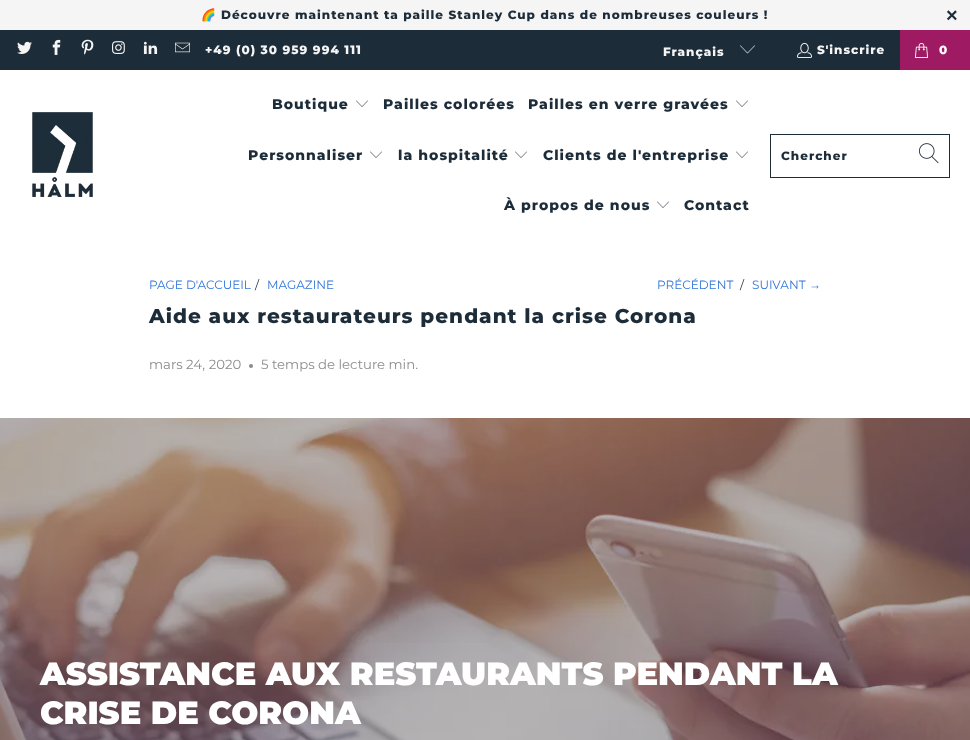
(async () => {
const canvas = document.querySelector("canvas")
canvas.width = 970
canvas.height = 740
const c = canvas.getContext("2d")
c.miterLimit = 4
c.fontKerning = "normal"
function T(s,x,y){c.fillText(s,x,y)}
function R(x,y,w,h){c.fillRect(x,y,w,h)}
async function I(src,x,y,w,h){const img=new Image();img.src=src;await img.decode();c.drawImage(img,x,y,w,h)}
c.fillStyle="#fff"
R(0,0,970,740)
c.fillStyle="#f5f5f5"
R(0,0,970,30)
c.letterSpacing="1px"
c.font="bold 12px Noto Color Emoji"
c.fillStyle="#1d2c39"
T("🌈",201,19)
c.font="800 12px Montserrat"
T("Découvre maintenant ta paille Stanley Cup dans de nombreuses couleurs !",221,19)
c.font="bold 20px Liberation Sans"
T("×",946,22)
R(0,30,900,40)
await I("1.png",17,41,15,13)
await I("2.png",52,39,9,16)
await I("3.png",81,39,13,16)
await I("4.png",112,41,13,13)
await I("5.png",143,41,15,13)
await I("6.png",175,42,15,11)
c.font="800 12px Montserrat"
c.fillStyle="#f5f5f5"
T("+49 (0) 30 959 994 111",205,54)
T("Français",663,56)
await I("7.png",740,45,15,9)
await I("8.png",797,42,15,16)
T("S'inscrire",817,54)
c.fillStyle="#9e1b63"
R(900,30,70,40)
await I("9.png",914,43,15,15)
c.fillStyle="#fff"
T("0",939,54)
await I("10.png",32,112,61,85)
c.font="800 14px Montserrat"
c.fillStyle="#1d2c39"
T("Boutique",272,109)
await I("11.png",356,100,12,7)
T("Pailles colorées",383,109)
T("Pailles en verre gravées",528,109)
await I("11.png",736,100,12,7)
T("Personnaliser",248,160)
await I("11.png",370,151,12,7)
T("la hospitalité",398,160)
await I("11.png",515,151,12,7)
T("Clients de l'entreprise",543,160)
await I("11.png",736,151,12,7)
T("À propos de nous",504,210)
await I("11.png",657,201,12,7)
T("Contact",684,210)
c.strokeStyle="#1d2c39"
c.strokeRect(770.5,134.5,179,43)
c.font="800 12px Montserrat"
T("Chercher",781,160)
await I("12.png",919,143,20,21)
c.letterSpacing="0px"
c.font="12px Montserrat"
c.fillStyle="#3175d8"
T("PAGE D'ACCUEIL",149,289)
c.fillStyle="#1d2c39"
T("/",255,289)
c.fillStyle="#3175d8"
T("MAGAZINE",267,289)
T("PRÉCÉDENT",657,289)
c.fillStyle="#1d2c39"
T("/",740,289)
c.fillStyle="#3175d8"
T("SUIVANT",752,289)
c.font="12px Liberation Sans"
T("→",809,289)
c.letterSpacing="1px"
c.font="800 20px Montserrat"
c.fillStyle="#1d2c39"
T("Aide aux restaurateurs pendant la crise Corona",149,323)
c.letterSpacing="0px"
c.font="13.25px Montserrat"
c.fillStyle="#8c8b8b"
T("mars 24, 2020",149,369)
c.beginPath()
c.arc(251,366,2,0,7)
c.fill()
T("5 temps de lecture min.",261,369)
await I("13.png",0,418,970,322)
c.font="900 32px Montserrat"
c.fillStyle="#fff"
T("ASSISTANCE AUX RESTAURANTS PENDANT LA",40,685)
T("CRISE DE CORONA",40,724)
})()
